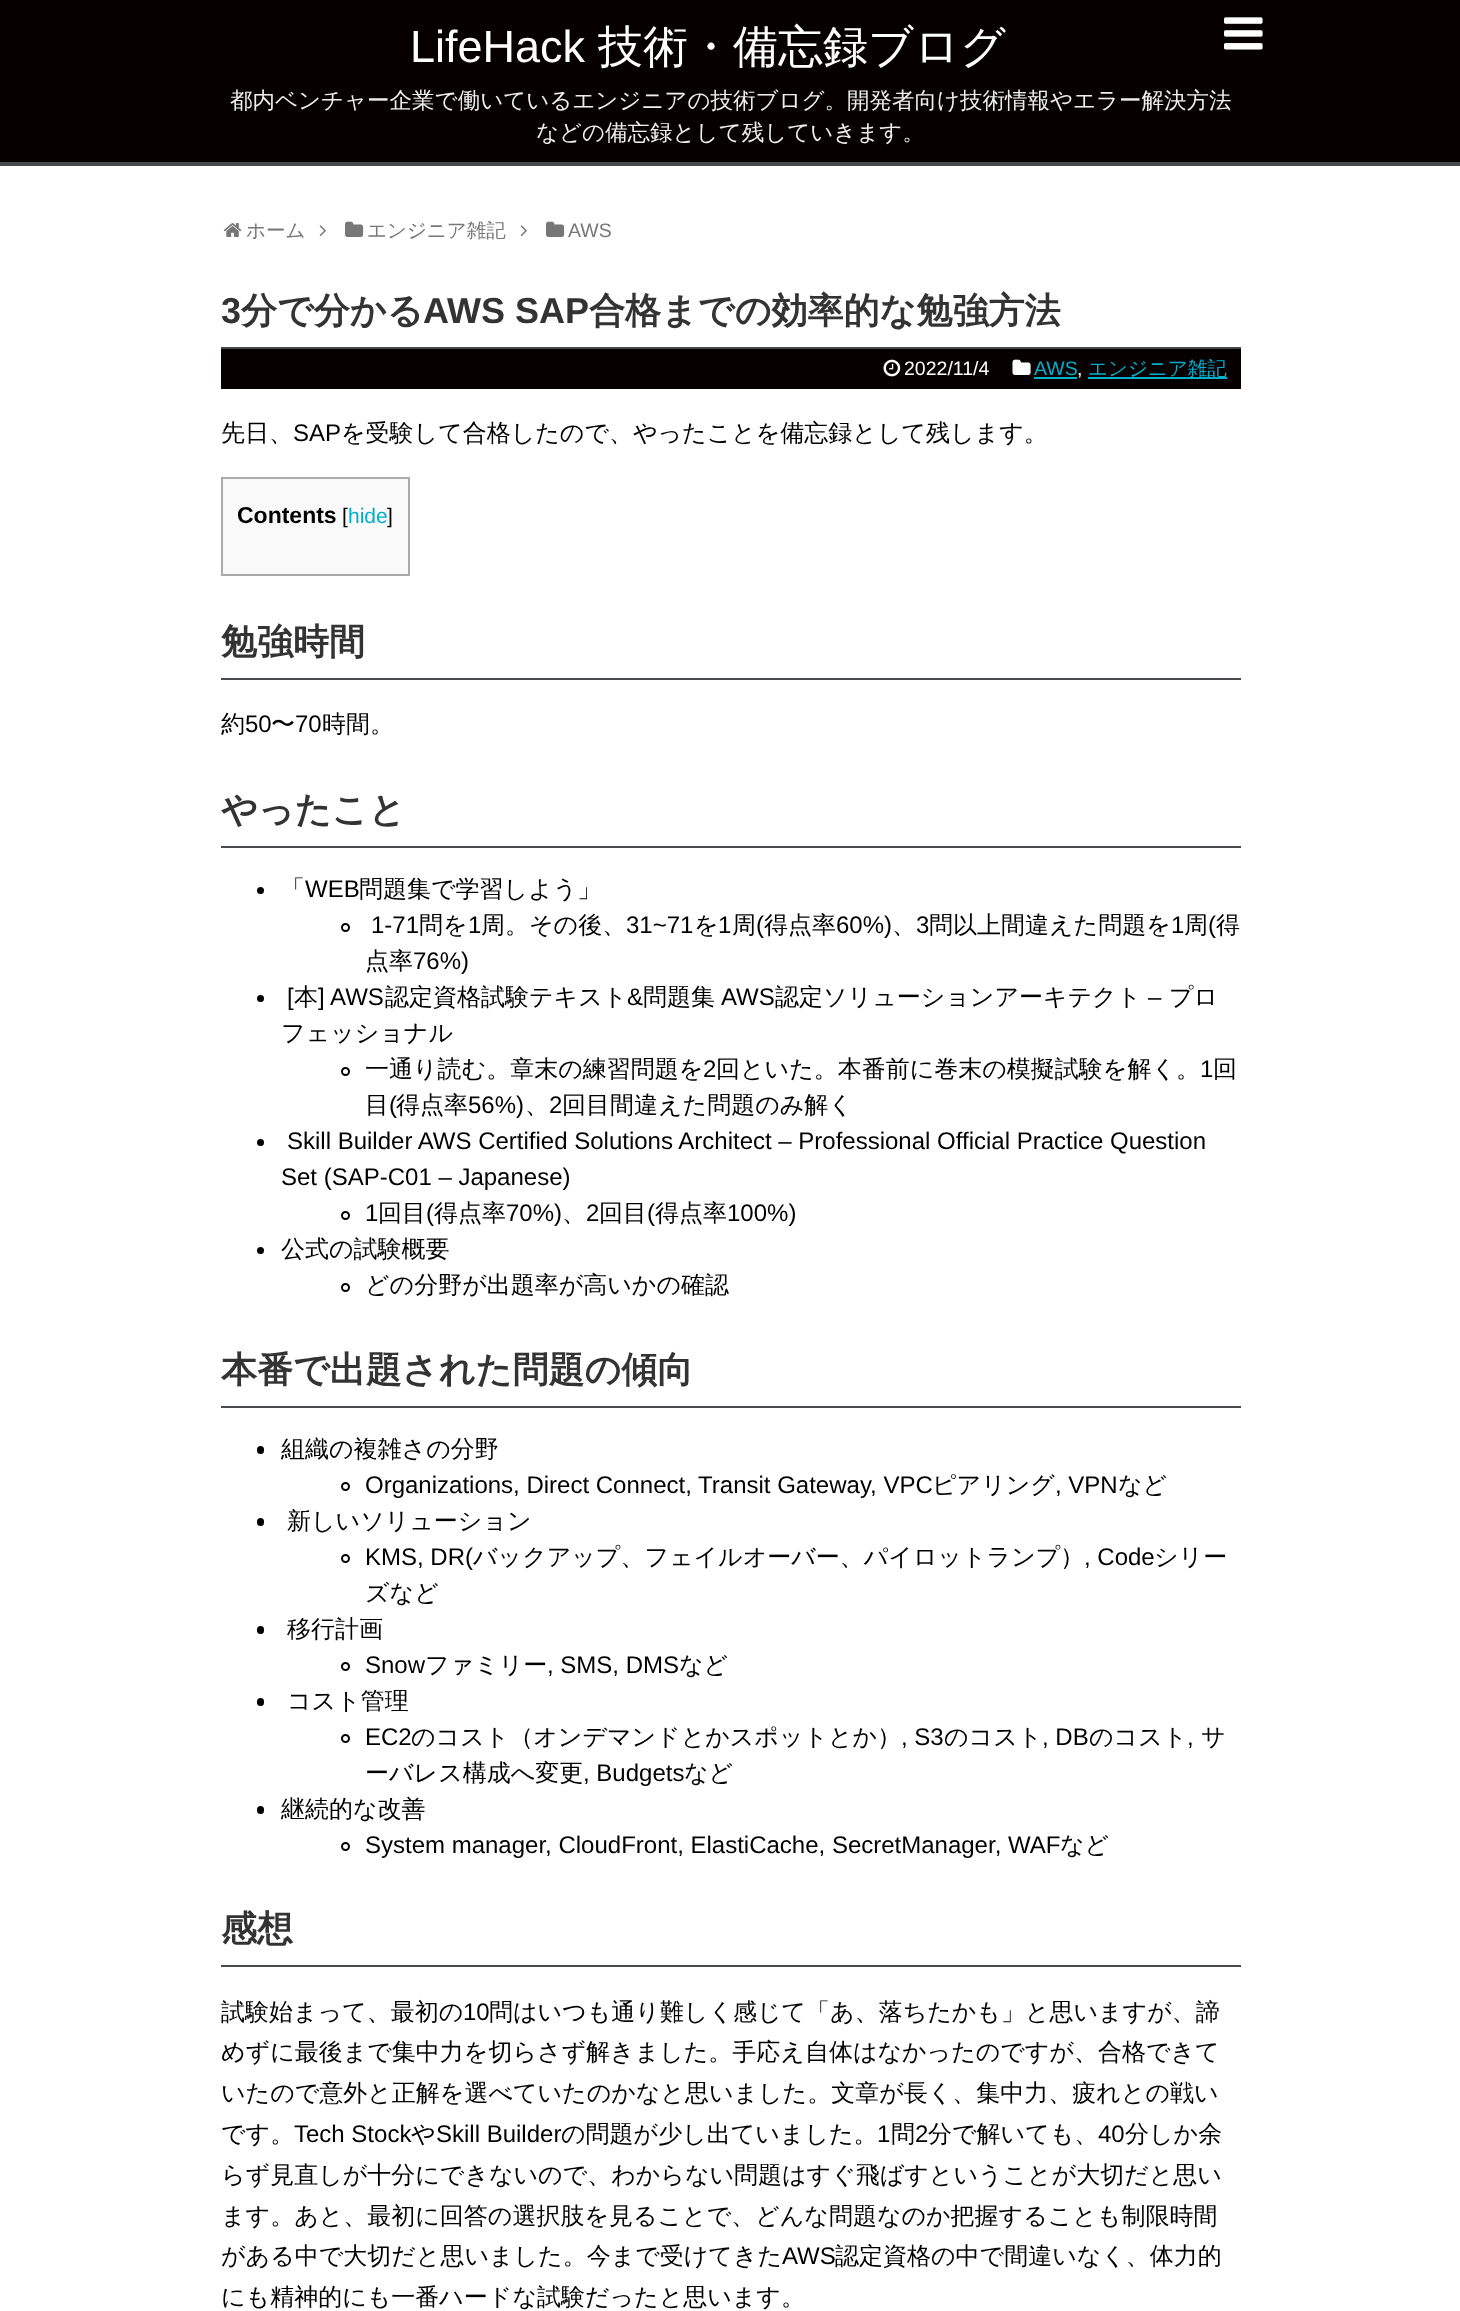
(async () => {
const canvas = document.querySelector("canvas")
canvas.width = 1460
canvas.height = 2311
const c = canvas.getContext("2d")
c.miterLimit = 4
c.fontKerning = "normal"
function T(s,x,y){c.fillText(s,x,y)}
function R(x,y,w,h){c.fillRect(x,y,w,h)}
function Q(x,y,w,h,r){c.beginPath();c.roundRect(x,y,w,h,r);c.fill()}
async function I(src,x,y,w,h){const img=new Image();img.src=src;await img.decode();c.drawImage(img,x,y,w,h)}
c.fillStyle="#fff"
R(0,0,1460,2311)
c.fillStyle="#060000"
R(0,0,1460,162)
c.font="45px Liberation Sans"
c.fillStyle="#fff"
T("LifeHack",410,62)
c.font="500 45px WenQuanYi Zen Hei"
T("技術・備忘録ブログ",598,62)
c.font="500 22.5px WenQuanYi Zen Hei"
c.fillStyle="#eee"
T("都内ベンチャー企業で働いているエンジニアの技術ブログ。開発者向け技術情報やエラー解決方法",230,108)
T("などの備忘録として残していきます。",536,140)
await I("1.png",1224,17,39,33)
c.fillStyle="#474a4d"
R(0,162,1460,4)
await I("2.png",223,223,19,14)
c.font="500 19.5px WenQuanYi Zen Hei"
c.fillStyle="#777"
T("ホーム",246,237)
await I("3.png",319,225,7,12)
await I("4.png",345,221,19,16)
T("エンジニア雑記",367,237)
await I("3.png",520,225,7,12)
await I("4.png",546,221,19,16)
c.font="19.5px Liberation Sans"
T("AWS",568,237)
c.fillStyle="#474a4d"
R(221,347,1020,2)
c.font="bold 36px Liberation Sans"
c.fillStyle="#333"
T("3",221,323)
c.font="bold 36px WenQuanYi Zen Hei"
T("分で分かる",241,323)
c.font="bold 36px Liberation Sans"
T("AWS SAP",423,323)
c.font="bold 36px WenQuanYi Zen Hei"
T("合格までの効率的な勉強方法",589,323)
c.fillStyle="#060000"
R(221,349,1020,40)
await I("5.png",883,359,18,18)
c.font="19.5px Liberation Sans"
c.fillStyle="#fff"
T("2022/11/4",904,375)
await I("6.png",1012,359,19,16)
c.fillStyle="#00afcc"
T("AWS",1034,375)
R(1034,377,43,2)
c.fillStyle="#fff"
T(",",1077,375)
c.fillStyle="#00afcc"
R(1088,377,139,2)
c.font="500 19.5px WenQuanYi Zen Hei"
T("エンジニア雑記",1088,375)
c.font="500 24px WenQuanYi Zen Hei"
c.fillStyle="#000"
T("先日、",221,441)
c.font="24px Liberation Sans"
T("SAP",293,441)
c.font="500 24px WenQuanYi Zen Hei"
T("を受験して合格したので、やったことを備忘録として残します。",341,441)
c.fillStyle="#f9f9f9"
c.beginPath()
c.rect(222,478,187,97)
c.fill()
c.strokeStyle="#aaa"
c.lineWidth=2
c.stroke()
c.font="bold 23px Liberation Sans"
c.fillStyle="#000"
T("Contents",237,523)
c.font="21px Liberation Sans"
T("[",342,523)
c.fillStyle="#00afcc"
T("hide",348,523)
c.fillStyle="#000"
T("]",387,523)
c.fillStyle="#474a4d"
R(221,678,1020,2)
c.font="bold 36px WenQuanYi Zen Hei"
c.fillStyle="#333"
T("勉強時間",221,654)
c.font="500 24px WenQuanYi Zen Hei"
c.fillStyle="#000"
T("約",221,732)
c.font="24px Liberation Sans"
T("50",245,732)
c.font="500 24px WenQuanYi Zen Hei"
T("〜",271,732)
c.font="24px Liberation Sans"
T("70",295,732)
c.font="500 24px WenQuanYi Zen Hei"
T("時間。",322,732)
c.fillStyle="#474a4d"
R(221,846,1020,2)
c.font="bold 36px WenQuanYi Zen Hei"
c.fillStyle="#333"
T("やったこと",221,822)
c.fillStyle="#000"
c.beginPath()
c.arc(260.5,890.5,3.5,0,7)
c.fill()
c.font="500 24px WenQuanYi Zen Hei"
T("「",281,897)
c.font="24px Liberation Sans"
T("WEB",305,897)
c.font="500 24px WenQuanYi Zen Hei"
T("問題集で学習しよう」",359,897)
c.beginPath()
c.arc(345.5,927.5,3.5,0,7)
c.strokeStyle="#000"
c.stroke()
c.font="24px Liberation Sans"
T("1-71",371,933)
c.font="500 24px WenQuanYi Zen Hei"
T("問を",419,933)
c.font="24px Liberation Sans"
T("1",468,933)
c.font="500 24px WenQuanYi Zen Hei"
T("周。その後、",481,933)
c.font="24px Liberation Sans"
T("31~71",626,933)
c.font="500 24px WenQuanYi Zen Hei"
T("を",694,933)
c.font="24px Liberation Sans"
T("1",718,933)
c.font="500 24px WenQuanYi Zen Hei"
T("周",732,933)
c.font="24px Liberation Sans"
T("(",756,933)
c.font="500 24px WenQuanYi Zen Hei"
T("得点率",764,933)
c.font="24px Liberation Sans"
T("60%)",836,933)
T("3",916,933)
c.font="500 24px WenQuanYi Zen Hei"
T("問以上間違えた問題を",929,933)
c.font="24px Liberation Sans"
T("1",1171,933)
c.font="500 24px WenQuanYi Zen Hei"
T("周",1184,933)
c.font="24px Liberation Sans"
T("(",1208,933)
c.font="500 24px WenQuanYi Zen Hei"
T("得",1216,933)
T("、",892,933)
T("点率",365,969)
c.font="24px Liberation Sans"
T("76%)",413,969)
c.beginPath()
c.arc(260.5,998.5,3.5,0,7)
c.fill()
T("[",287,1005)
c.font="500 24px WenQuanYi Zen Hei"
T("本",294,1005)
c.font="24px Liberation Sans"
T("] AWS",318,1005)
c.font="500 24px WenQuanYi Zen Hei"
T("認定資格試験テキスト",385,1005)
c.font="24px Liberation Sans"
T("&",627,1005)
c.font="500 24px WenQuanYi Zen Hei"
T("問題集",643,1005)
c.font="24px Liberation Sans"
T("AWS",721,1005)
c.font="500 24px WenQuanYi Zen Hei"
T("認定ソリューションアーキテクト",775,1005)
c.font="24px Liberation Sans"
T("–",1148,1005)
c.font="500 24px WenQuanYi Zen Hei"
T("プロ",1169,1005)
T("フェッショナル",281,1041)
c.beginPath()
c.arc(345.5,1071.5,3.5,0,7)
c.stroke()
T("一通り読む。章末の練習問題を",365,1077)
c.font="24px Liberation Sans"
T("2",703,1077)
c.font="500 24px WenQuanYi Zen Hei"
T("回といた。本番前に巻末の模擬試験を解く。",716,1077)
c.font="24px Liberation Sans"
T("1",1200,1077)
c.font="500 24px WenQuanYi Zen Hei"
T("回",1213,1077)
T("目",365,1113)
c.font="24px Liberation Sans"
T("(",389,1113)
c.font="500 24px WenQuanYi Zen Hei"
T("得点率",396,1113)
c.font="24px Liberation Sans"
T("56%)",468,1113)
T("2",549,1113)
c.font="500 24px WenQuanYi Zen Hei"
T("回目間違えた問題のみ解く",562,1113)
T("、",525,1113)
c.beginPath()
c.arc(260.5,1142.5,3.5,0,7)
c.fill()
c.font="24px Liberation Sans"
T("Skill Builder AWS Certified Solutions Architect – Professional Official Practice Question",287,1149)
T("Set (SAP-C01 – Japanese)",281,1185)
c.beginPath()
c.arc(345.5,1215.5,3.5,0,7)
c.stroke()
T("1",365,1221)
c.font="500 24px WenQuanYi Zen Hei"
T("回目",378,1221)
c.font="24px Liberation Sans"
T("(",426,1221)
c.font="500 24px WenQuanYi Zen Hei"
T("得点率",434,1221)
c.font="24px Liberation Sans"
T("70%)",506,1221)
T("2",586,1221)
c.font="500 24px WenQuanYi Zen Hei"
T("回目",599,1221)
c.font="24px Liberation Sans"
T("(",647,1221)
c.font="500 24px WenQuanYi Zen Hei"
T("得点率",655,1221)
c.font="24px Liberation Sans"
T("100%)",727,1221)
c.font="500 24px WenQuanYi Zen Hei"
T("、",562,1221)
c.beginPath()
c.arc(260.5,1250.5,3.5,0,7)
c.fill()
T("公式の試験概要",281,1257)
c.beginPath()
c.arc(345.5,1287.5,3.5,0,7)
c.stroke()
T("どの分野が出題率が高いかの確認",365,1293)
c.fillStyle="#474a4d"
R(221,1406,1020,2)
c.font="bold 36px WenQuanYi Zen Hei"
c.fillStyle="#333"
T("本番で出題された問題の傾向",221,1382)
c.fillStyle="#000"
Q(257,1446,7,8,3.5)
c.font="500 24px WenQuanYi Zen Hei"
T("組織の複雑さの分野",281,1457)
c.beginPath()
c.arc(345.5,1486.5,3.5,0,7)
c.stroke()
c.font="24px Liberation Sans"
T("Organizations, Direct Connect, Transit Gateway, VPC",365,1493)
c.font="500 24px WenQuanYi Zen Hei"
T("ピアリング",932,1493)
c.font="24px Liberation Sans"
T(", VPN",1055,1493)
c.font="500 24px WenQuanYi Zen Hei"
T("など",1118,1493)
Q(257,1518,7,8,3.5)
T("新しいソリューション",287,1529)
c.beginPath()
c.arc(345.5,1558.5,3.5,0,7)
c.stroke()
c.font="24px Liberation Sans"
T("KMS, DR(",365,1565)
c.font="500 24px WenQuanYi Zen Hei"
T("バックアップ、フェイルオーバー、パイロットランプ）",473,1565)
c.font="24px Liberation Sans"
T(", Code",1084,1565)
c.font="500 24px WenQuanYi Zen Hei"
T("シリー",1154,1565)
T("ズなど",365,1601)
Q(257,1626,7,8,3.5)
T("移行計画",287,1637)
c.beginPath()
c.arc(345.5,1666.5,3.5,0,7)
c.stroke()
c.font="24px Liberation Sans"
T("Snow",365,1673)
c.font="500 24px WenQuanYi Zen Hei"
T("ファミリー",425,1673)
c.font="24px Liberation Sans"
T(", SMS, DMS",547,1673)
c.font="500 24px WenQuanYi Zen Hei"
T("など",679,1673)
Q(257,1698,7,8,3.5)
T("コスト管理",287,1709)
c.beginPath()
c.arc(345.5,1738.5,3.5,0,7)
c.stroke()
c.font="24px Liberation Sans"
T("EC2",365,1745)
c.font="500 24px WenQuanYi Zen Hei"
T("のコスト（オンデマンドとかスポットとか）",411,1745)
c.font="24px Liberation Sans"
T(", S3",901,1745)
c.font="500 24px WenQuanYi Zen Hei"
T("のコスト",944,1745)
c.font="24px Liberation Sans"
T(", DB",1042,1745)
c.font="500 24px WenQuanYi Zen Hei"
T("のコスト",1089,1745)
T("サ",1201,1745)
c.font="24px Liberation Sans"
T(",",1187,1745)
c.font="500 24px WenQuanYi Zen Hei"
T("ーバレス構成へ変更",365,1781)
c.font="24px Liberation Sans"
T(", Budgets",583,1781)
c.font="500 24px WenQuanYi Zen Hei"
T("など",684,1781)
Q(257,1806,7,8,3.5)
T("継続的な改善",281,1817)
c.beginPath()
c.arc(345.5,1846.5,3.5,0,7)
c.stroke()
c.font="24px Liberation Sans"
T("System manager, CloudFront, ElastiCache, SecretManager, WAF",365,1853)
c.font="500 24px WenQuanYi Zen Hei"
T("など",1060,1853)
c.fillStyle="#474a4d"
R(221,1965,1020,2)
c.font="bold 36px WenQuanYi Zen Hei"
c.fillStyle="#333"
T("感想",221,1941)
c.font="500 24px WenQuanYi Zen Hei"
c.fillStyle="#000"
T("試験始まって、最初の",221,2020)
c.font="24px Liberation Sans"
T("10",463,2020)
c.font="500 24px WenQuanYi Zen Hei"
T("問はいつも通り難しく感じて「あ、落ちたかも」と思いますが、諦",489,2020)
T("めずに最後まで集中力を切らさず解きました。手応え自体はなかったのですが、合格できて",221,2060)
T("いたので意外と正解を選べていたのかなと思いました。文章が長く、集中力、疲れとの戦い",221,2101)
T("です。",221,2142)
c.font="24px Liberation Sans"
T("Tech Stock",294,2142)
c.font="500 24px WenQuanYi Zen Hei"
T("や",411,2142)
c.font="24px Liberation Sans"
T("Skill Builder",436,2142)
c.font="500 24px WenQuanYi Zen Hei"
T("の問題が少し出ていました。",561,2142)
c.font="24px Liberation Sans"
T("1",877,2142)
c.font="500 24px WenQuanYi Zen Hei"
T("問",891,2142)
c.font="24px Liberation Sans"
T("2",915,2142)
c.font="500 24px WenQuanYi Zen Hei"
T("分で解いても、",928,2142)
c.font="24px Liberation Sans"
T("40",1098,2142)
c.font="500 24px WenQuanYi Zen Hei"
T("分しか余",1125,2142)
T("らず見直しが十分にできないので、わからない問題はすぐ飛ばすということが大切だと思い",221,2183)
T("ます。あと、最初に回答の選択肢を見ることで、どんな問題なのか把握することも制限時間",221,2224)
T("がある中で大切だと思いました。今まで受けてきた",221,2264)
c.font="24px Liberation Sans"
T("AWS",782,2264)
c.font="500 24px WenQuanYi Zen Hei"
T("認定資格の中で間違いなく、体力的",835,2264)
T("にも精神的にも一番ハードな試験だったと思います。",221,2305)
})()
